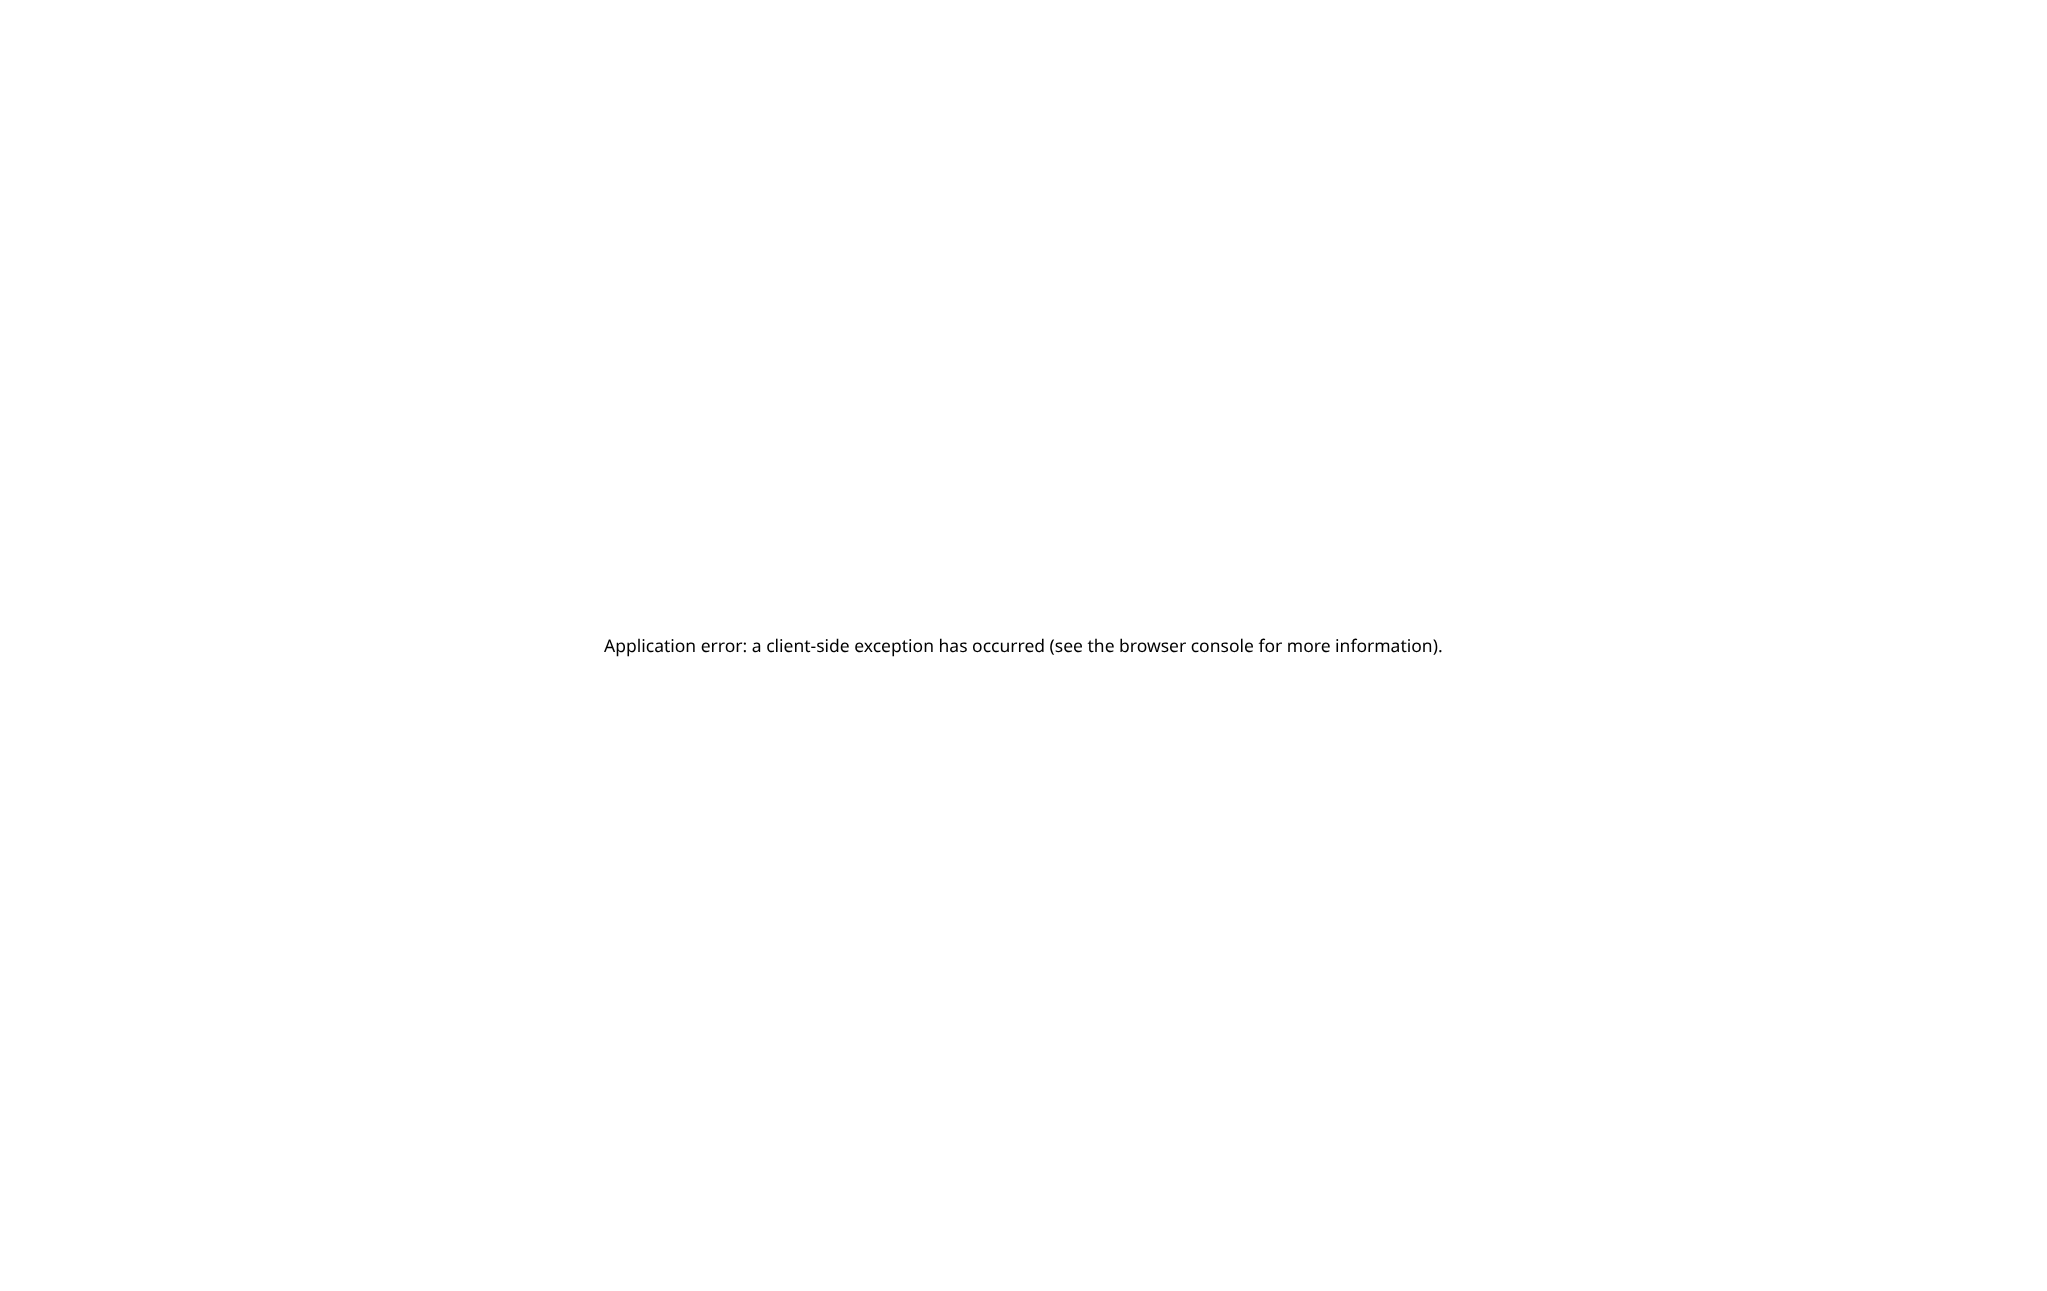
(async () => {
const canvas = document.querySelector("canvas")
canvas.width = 2047
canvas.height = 1291
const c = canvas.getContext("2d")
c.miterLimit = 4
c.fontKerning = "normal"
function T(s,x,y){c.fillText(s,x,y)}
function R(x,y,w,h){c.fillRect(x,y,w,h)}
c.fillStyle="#fff"
R(0,0,2047,1291)
c.font="17.5px Noto Sans"
c.fillStyle="#000"
T("Application error: a client-side exception has occurred (see the browser console for more information).",604,652)
})()
